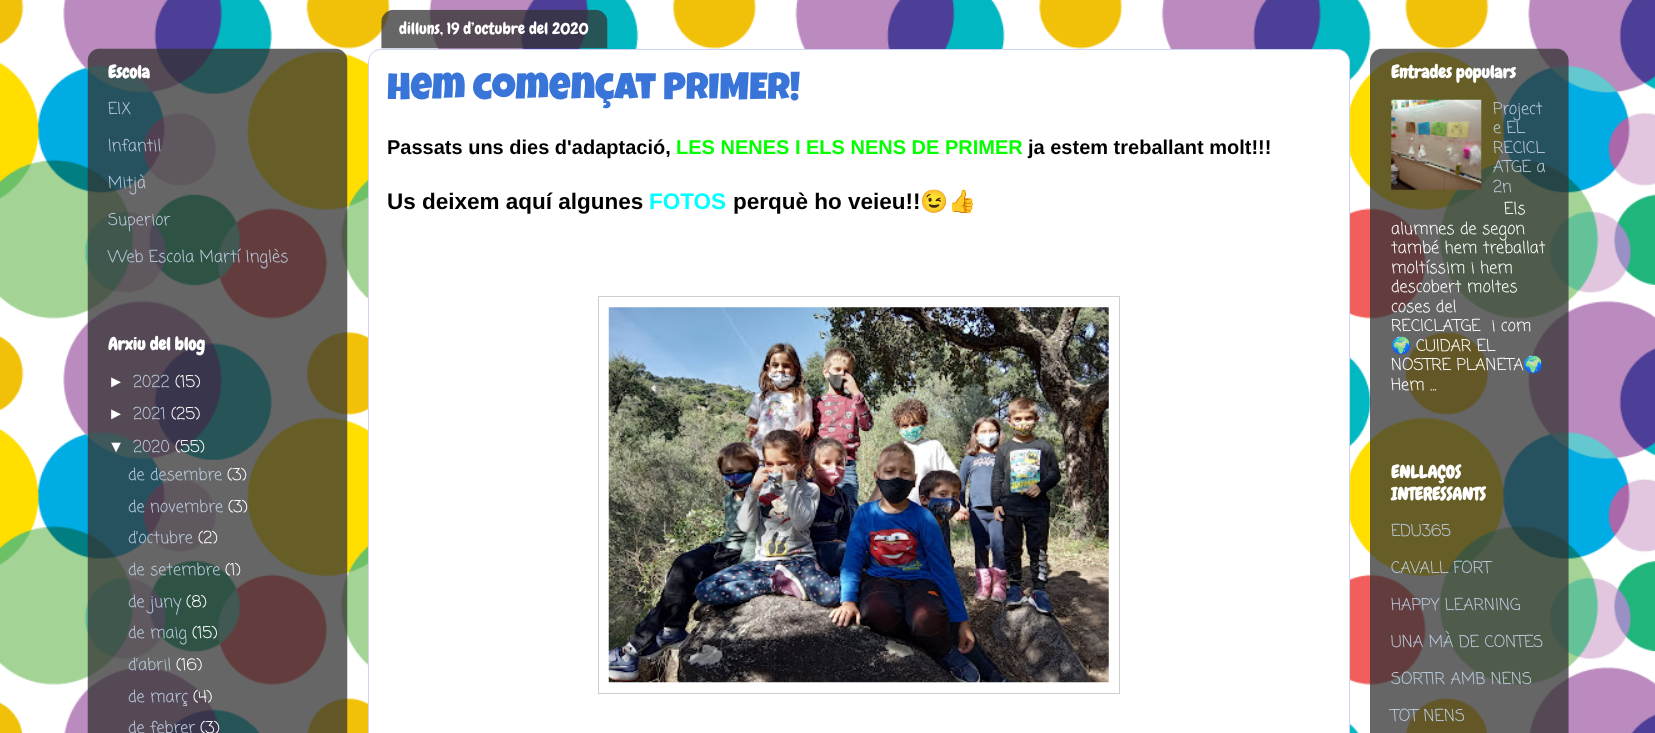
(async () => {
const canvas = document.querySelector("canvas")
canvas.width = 1655
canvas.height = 733
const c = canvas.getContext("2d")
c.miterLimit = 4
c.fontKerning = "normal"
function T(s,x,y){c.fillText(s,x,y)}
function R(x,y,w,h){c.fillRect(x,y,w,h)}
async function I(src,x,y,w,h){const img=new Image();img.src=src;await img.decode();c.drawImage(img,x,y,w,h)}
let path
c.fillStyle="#fff"
R(0,0,1655,733)
await I("1.png",0,0,1655,733)
await I("2.png",87,48,261,685)
c.font="bold 17.5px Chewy"
T("Escola",108,78)
c.font="16.25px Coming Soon"
c.fillStyle="#b9c9db"
T("EIX",108,114)
T("Infantil",108,151)
T("Mitjà",108,188)
T("Superior",108,225)
T("Web Escola Martí Inglès",108,262)
c.font="bold 17.5px Chewy"
c.fillStyle="#fff"
T("Arxiu del blog",108,350)
c.font="16.25px Liberation Sans"
T("►",108,387)
c.font="16.25px Coming Soon"
c.fillStyle="#b9c9db"
T("2022",133,387)
c.fillStyle="#fff"
T("(15)",175,387)
c.font="16.25px Liberation Sans"
T("►",108,419)
c.font="16.25px Coming Soon"
c.fillStyle="#b9c9db"
T("2021",133,419)
c.fillStyle="#fff"
T("(25)",171,419)
c.font="16.25px Liberation Sans"
T("▼",108,452)
c.font="16.25px Coming Soon"
c.fillStyle="#b9c9db"
T("2020",133,452)
c.fillStyle="#fff"
T("(55)",175,452)
c.fillStyle="#b9c9db"
T("de desembre",128,480)
c.fillStyle="#fff"
T("(3)",227,480)
c.fillStyle="#b9c9db"
T("de novembre",128,512)
c.fillStyle="#fff"
T("(3)",228,512)
c.fillStyle="#b9c9db"
T("d’octubre",128,543)
c.fillStyle="#fff"
T("(2)",198,543)
c.fillStyle="#b9c9db"
T("de setembre",128,575)
c.fillStyle="#fff"
T("(1)",225,575)
c.fillStyle="#b9c9db"
T("de juny",128,607)
c.fillStyle="#fff"
T("(8)",186,607)
c.fillStyle="#b9c9db"
T("de maig",128,638)
c.fillStyle="#fff"
T("(15)",192,638)
c.fillStyle="#b9c9db"
T("d’abril",128,670)
c.fillStyle="#fff"
T("(16)",176,670)
c.fillStyle="#b9c9db"
T("de març",128,702)
c.fillStyle="#fff"
T("(4)",193,702)
c.fillStyle="#b9c9db"
T("de febrer",128,733)
c.fillStyle="#fff"
T("(3)",200,733)
path = new Path2D("M381 49.5h956c7 0 12.5 5.5 12.5 12.5v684.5h-981v-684.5c0-7 5.5-12.5 12.5-12.5z")
c.fill(path)
c.strokeStyle="#ced4f5"
c.stroke(path)
await I("3.png",381,9,227,40)
c.font="16.25px Chewy"
T("dilluns, 19 d’octubre del 2020",399,34)
c.font="37.5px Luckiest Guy"
c.fillStyle="#3975d8"
T("Hem començat PRIMER!",387,99)
c.font="bold 20px Liberation Sans"
c.fillStyle="#000"
T("Passats uns dies d'adaptació,",387,154)
c.fillStyle="#04ff00"
T("LES NENES I ELS NENS DE PRIMER",676,154)
c.fillStyle="#000"
T("ja estem treballant molt!!!",1028,154)
c.font="bold 22.5px Liberation Sans"
T("Us deixem aquí algunes",387,209)
c.fillStyle="#01ffff"
T("FOTOS",649,209)
c.fillStyle="#000"
T("perquè ho veieu!!",733,209)
c.font="22.5px Noto Color Emoji"
T("😉👍",920,209)
c.strokeStyle="#cecece"
c.strokeRect(598.5,296.5,521,397)
await I("4.png",608,307,501,376)
await I("5.png",1370,48,199,685)
c.font="bold 17.5px Chewy"
c.fillStyle="#fff"
T("Entrades populars",1391,78)
await I("6.png",1391,99,91,91)
c.font="16.25px Coming Soon"
c.fillStyle="#b9c9db"
T("Project",1493,114)
T("e EL",1493,133)
T("RECICL",1493,153)
T("ATGE a",1493,172)
T("2n",1493,192)
c.fillStyle="#fff"
T("Els",1504,214)
T("alumnes de segon",1391,234)
T("també hem treballat",1391,253)
T("moltíssim i hem",1391,273)
T("descobert moltes",1391,292)
T("coses del",1391,312)
T("RECICLATGE  i com",1391,331)
c.font="16.25px Noto Color Emoji"
T("🌍",1391,351)
c.font="16.25px Coming Soon"
T("CUIDAR EL",1416,351)
T("NOSTRE PLANETA",1391,370)
c.font="16.25px Noto Color Emoji"
T("🌍",1523,370)
c.font="16.25px Coming Soon"
T("Hem ...",1391,390)
c.font="bold 17.5px Chewy"
T("ENLLAÇOS",1391,478)
T("INTERESSANTS",1391,500)
c.font="16.25px Coming Soon"
c.fillStyle="#b9c9db"
T("EDU365",1391,536)
T("CAVALL FORT",1391,573)
T("HAPPY LEARNING",1391,610)
T("UNA MÀ DE CONTES",1391,647)
T("SORTIR AMB NENS",1391,684)
T("TOT NENS",1391,721)
})()
